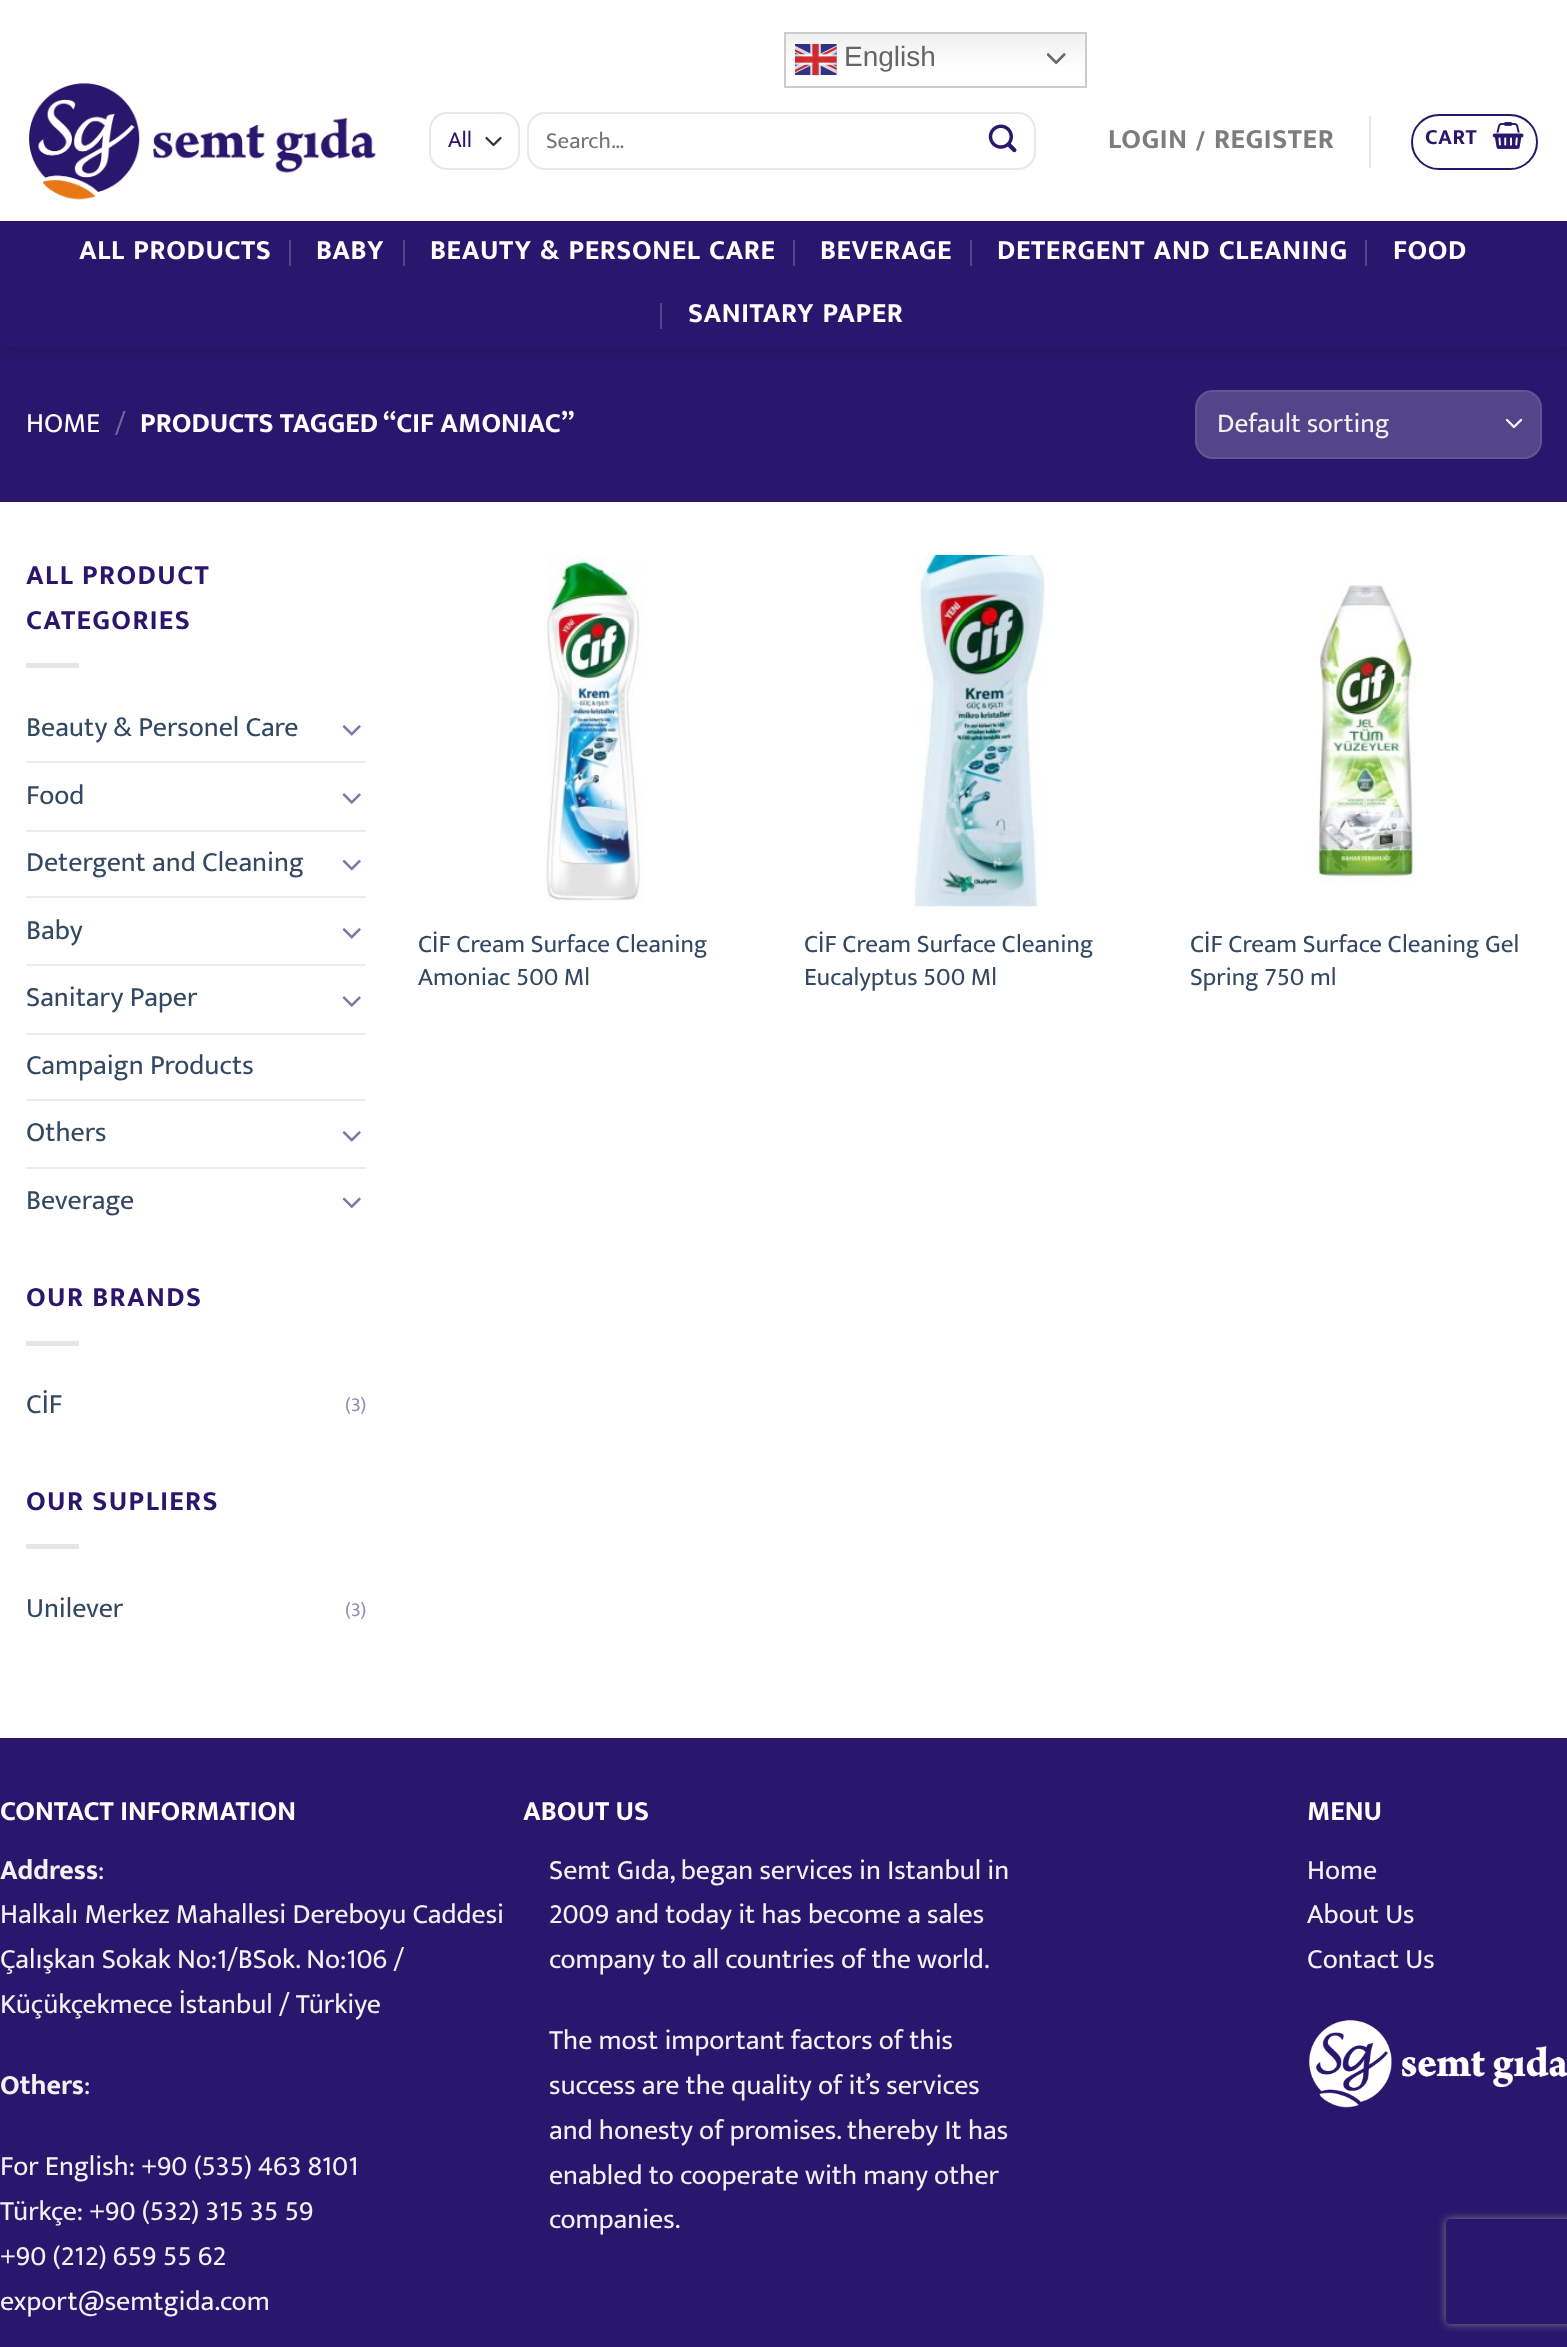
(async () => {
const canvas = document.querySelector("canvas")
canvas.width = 1567
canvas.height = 2347
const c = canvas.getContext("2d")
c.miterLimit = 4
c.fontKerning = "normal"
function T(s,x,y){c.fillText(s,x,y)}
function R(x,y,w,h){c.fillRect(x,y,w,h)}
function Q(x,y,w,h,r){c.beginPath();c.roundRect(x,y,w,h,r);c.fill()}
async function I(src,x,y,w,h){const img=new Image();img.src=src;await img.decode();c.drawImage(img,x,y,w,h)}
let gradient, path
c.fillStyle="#fff"
R(0,0,1567,2347)
c.fillStyle="#29176d"
R(0,347,1567,155)
c.fillStyle="#00000026"
c.filter="blur(9px)"
c.beginPath()
c.rect(2,2,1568,346)
c.fill()
c.filter="none"
c.fillStyle="#fff"
R(0,0,1567,221)
gradient = c.createLinearGradient(935,31,935,88)
gradient.addColorStop(0,"#efefef")
gradient.addColorStop(.7,"#fff")
c.fillStyle = gradient
R(786,34,299,31)
c.strokeStyle="#ccc"
c.lineWidth=2
c.strokeRect(785,33,301,54)
await I("1.png",795,43,42,33)
c.font="28px Liberation Sans"
c.fillStyle="#666"
T("English",844,66)
await I("2.png",1047,53,19,12)
await I("3.png",29,83,347,117)
path = new Path2D("M486.5 138l7 7l7-7")
c.strokeStyle="#333"
c.lineWidth=2.3
c.lineCap="round"
c.lineJoin="round"
c.stroke(path)
c.beginPath()
c.roundRect(430,113,89,56,17)
c.strokeStyle="#e8e8e8"
c.lineWidth=2
c.lineJoin="miter"
c.stroke()
c.font="23px Mukta"
c.fillStyle="#29176d"
T("All",448,147)
c.beginPath()
c.roundRect(528,113,507,56,17)
c.stroke()
c.fillStyle="#757575"
T("Search…",546,148)
await I("4.png",988,124,29,29)
c.letterSpacing="0.6px"
c.font="bold 28px Mukta Malar"
c.fillStyle="#7d7d7d"
T("LOGIN / REGISTER",1108,148)
c.fillStyle="#e6e6e6"
R(1369,116,2,52)
c.beginPath()
c.roundRect(1412,115,125,54,27)
c.strokeStyle="#29176d"
c.stroke()
c.letterSpacing="0.5px"
c.font="bold 22px Mukta"
c.fillStyle="#29176d"
T("CART",1425,144)
await I("5.png",1492,122,32,27)
R(0,221,1567,126)
c.letterSpacing="0.6px"
c.font="bold 28px Mukta Malar"
c.fillStyle="#fff"
T("ALL PRODUCTS",79,259)
c.fillStyle="#54458a"
R(289,240,2,26)
c.fillStyle="#fff"
T("BABY",316,259)
c.fillStyle="#54458a"
R(403,240,2,26)
c.fillStyle="#fff"
T("BEAUTY & PERSONEL CARE",430,259)
c.fillStyle="#54458a"
R(793,240,2,26)
c.fillStyle="#fff"
T("BEVERAGE",820,259)
c.fillStyle="#54458a"
R(970,240,2,26)
c.fillStyle="#fff"
T("DETERGENT AND CLEANING",997,259)
c.fillStyle="#54458a"
R(1365,240,2,26)
c.fillStyle="#fff"
T("FOOD",1393,259)
c.fillStyle="#54458a"
R(660,303,2,26)
c.fillStyle="#fff"
T("SANITARY PAPER",688,322)
c.letterSpacing="0px"
c.font="28px Mukta"
T("HOME",26,432)
c.fillStyle="#7468a0"
T("/",115,432)
c.font="bold 28px Mukta"
c.fillStyle="#fff"
T("PRODUCTS TAGGED “CIF AMONIAC”",140,432)
c.fillStyle="#54458a"
Q(1195,390,347,69,18)
path = new Path2D("M1507 420l7 7l7-7")
c.strokeStyle="#fff"
c.lineWidth=2.3
c.lineJoin="round"
c.stroke(path)
c.beginPath()
c.roundRect(1196,391,345,67,17)
c.strokeStyle="#ffffff17"
c.lineWidth=2
c.lineJoin="miter"
c.stroke()
c.font="27.25px Mukta"
c.fillStyle="#f1f1f1"
T("Default sorting",1217,432)
c.letterSpacing="1.4px"
c.font="bold 28px Mukta"
c.fillStyle="#29176d"
T("ALL PRODUCT",26,584)
T("CATEGORIES",26,629)
c.fillStyle="#e6e6e6"
R(26,663,53,5)
c.letterSpacing="0px"
c.font="28px Mukta"
c.fillStyle="#334862"
T("Beauty & Personel Care",26,736)
await I("6.png",342,725,19,11)
c.fillStyle="#ececec"
R(26,761,340,2)
c.fillStyle="#334862"
T("Food",26,804)
await I("7.png",342,793,19,11)
c.fillStyle="#ececec"
R(26,830,340,2)
c.fillStyle="#334862"
T("Detergent and Cleaning",26,871)
await I("8.png",342,859,19,12)
c.fillStyle="#ececec"
R(26,896,340,2)
c.fillStyle="#334862"
T("Baby",26,939)
await I("6.png",342,928,19,11)
c.fillStyle="#ececec"
R(26,964,340,2)
c.fillStyle="#334862"
T("Sanitary Paper",26,1006)
await I("7.png",342,996,19,11)
c.fillStyle="#ececec"
R(26,1033,340,2)
c.fillStyle="#334862"
T("Campaign Products",26,1074)
c.fillStyle="#ececec"
R(26,1099,340,2)
c.fillStyle="#334862"
T("Others",26,1141)
await I("6.png",342,1131,19,11)
c.fillStyle="#ececec"
R(26,1167,340,2)
c.fillStyle="#334862"
T("Beverage",26,1209)
await I("9.png",342,1197,19,12)
c.letterSpacing="1.4px"
c.font="bold 28px Mukta"
c.fillStyle="#29176d"
T("OUR BRANDS",26,1306)
c.fillStyle="#e6e6e6"
R(26,1341,53,5)
c.letterSpacing="0px"
c.font="28px Mukta"
c.fillStyle="#334862"
T("CİF",26,1413)
c.font="20px Mukta"
c.fillStyle="#948bb6"
T("(3)",345,1411)
c.letterSpacing="1.4px"
c.font="bold 28px Mukta"
c.fillStyle="#29176d"
T("OUR SUPLIERS",26,1510)
c.fillStyle="#e6e6e6"
R(26,1544,53,5)
c.letterSpacing="0px"
c.font="28px Mukta"
c.fillStyle="#334862"
T("Unilever",26,1617)
c.font="20px Mukta"
c.fillStyle="#948bb6"
T("(3)",345,1616)
await I("10.png",544,555,100,347)
c.font="25.25px Mukta"
c.fillStyle="#334862"
T("CİF Cream Surface Cleaning",418,952)
T("Amoniac 500 Ml",418,985)
await I("11.png",914,554,133,353)
T("CİF Cream Surface Cleaning",804,952)
T("Eucalyptus 500 Ml",804,985)
await I("12.png",1310,583,106,300)
T("CİF Cream Surface Cleaning Gel",1190,952)
T("Spring 750 ml",1190,985)
c.fillStyle="#29176d"
R(0,1738,1567,609)
c.font="bold 28px Mukta"
c.fillStyle="#fff"
T("CONTACT INFORMATION",0,1820)
c.fillStyle="#f1f1f1"
T("Address",0,1879)
c.font="28px Mukta"
T(":",98,1879)
T("Halkalı Merkez Mahallesi Dereboyu Caddesi",0,1923)
T("Çalışkan Sokak No:1/BSok. No:106 /",0,1968)
T("Küçükçekmece İstanbul / Türkiye",0,2013)
c.font="bold 28px Mukta"
T("Others",0,2094)
c.font="28px Mukta"
T(":",84,2094)
T("For English: +90 (535) 463 8101",0,2175)
T("Türkçe: +90 (532) 315 35 59",0,2220)
T("+90 (212) 659 55 62",0,2265)
T("export@semtgida.com",0,2310)
c.font="bold 28px Mukta"
c.fillStyle="#fff"
T("ABOUT US",523,1820)
c.font="28px Mukta"
c.fillStyle="#f1f1f1"
T("Semt Gıda, began services in Istanbul in",549,1879)
T("2009 and today it has become a sales",549,1923)
T("company to all countries of the world.",549,1968)
T("The most important factors of this",549,2049)
T("success are the quality of it’s services",549,2094)
T("and honesty of promises. thereby It has",549,2139)
T("enabled to cooperate with many other",549,2184)
T("companies.",549,2228)
c.font="bold 28px Mukta"
c.fillStyle="#fff"
T("MENU",1307,1820)
c.font="28px Mukta"
c.fillStyle="#f1f1f1"
T("Home",1307,1879)
T("About Us",1307,1923)
T("Contact Us",1307,1968)
await I("13.png",1309,2020,258,88)
c.save()
path = new Path2D("M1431 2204h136v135h-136zm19 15h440c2 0 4 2 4 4v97c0 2-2 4-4 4h-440c-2 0-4-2-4-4v-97c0-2 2-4 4-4z")
c.clip(path,"evenodd")
c.fillStyle="#808080"
c.filter="blur(4.5px)"
c.beginPath()
c.roundRect(1446,2219,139,105,4)
c.fill()
c.filter="none"
c.restore()
})()
